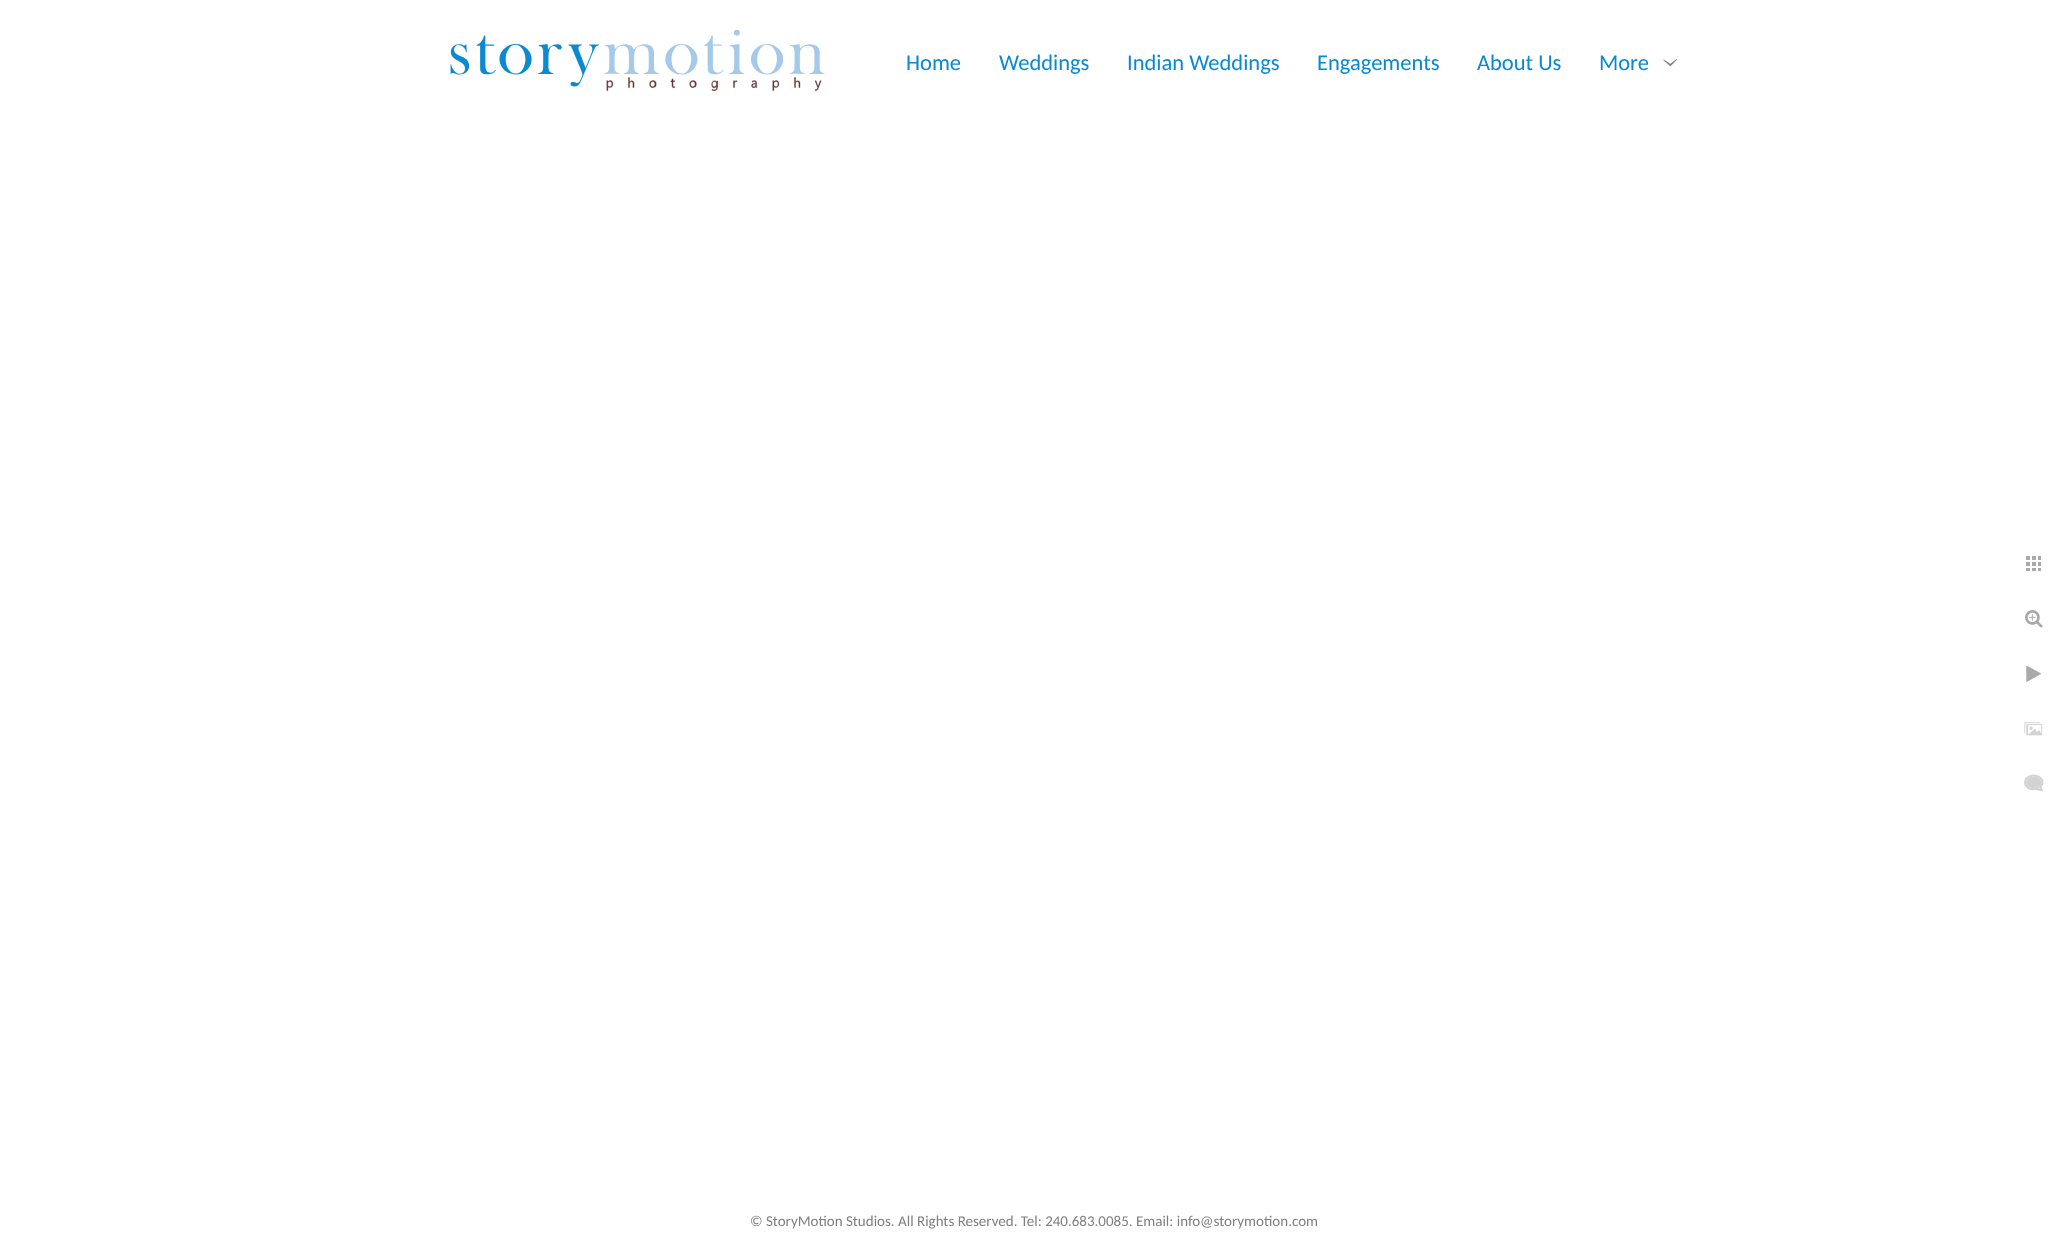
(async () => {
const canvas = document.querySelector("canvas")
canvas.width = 2067
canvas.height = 1246
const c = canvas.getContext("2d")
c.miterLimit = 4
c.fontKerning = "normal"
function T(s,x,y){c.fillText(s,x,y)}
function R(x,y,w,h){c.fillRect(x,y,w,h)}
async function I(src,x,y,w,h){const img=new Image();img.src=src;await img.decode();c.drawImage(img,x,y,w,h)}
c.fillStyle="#fff"
R(0,0,2067,1246)
await I("1.png",450,29,375,63)
c.font="22.5px Carlito"
c.fillStyle="#0b88d1"
T("Home",906,70)
T("Weddings",999,70)
T("Indian Weddings",1127,70)
T("Engagements",1317,70)
T("About Us",1477,70)
T("More",1599,70)
await I("2.png",1663,59,15,7)
await I("3.png",2026,556,15,15)
await I("4.png",2025,610,18,18)
await I("5.png",2026,665,15,17)
await I("6.png",2024,722,19,14)
await I("7.png",2024,774,20,18)
c.font="15px Carlito"
c.fillStyle="#808080"
T("© StoryMotion Studios. All Rights Reserved. Tel: 240.683.0085. Email: info@storymotion.com",750,1226)
})()
